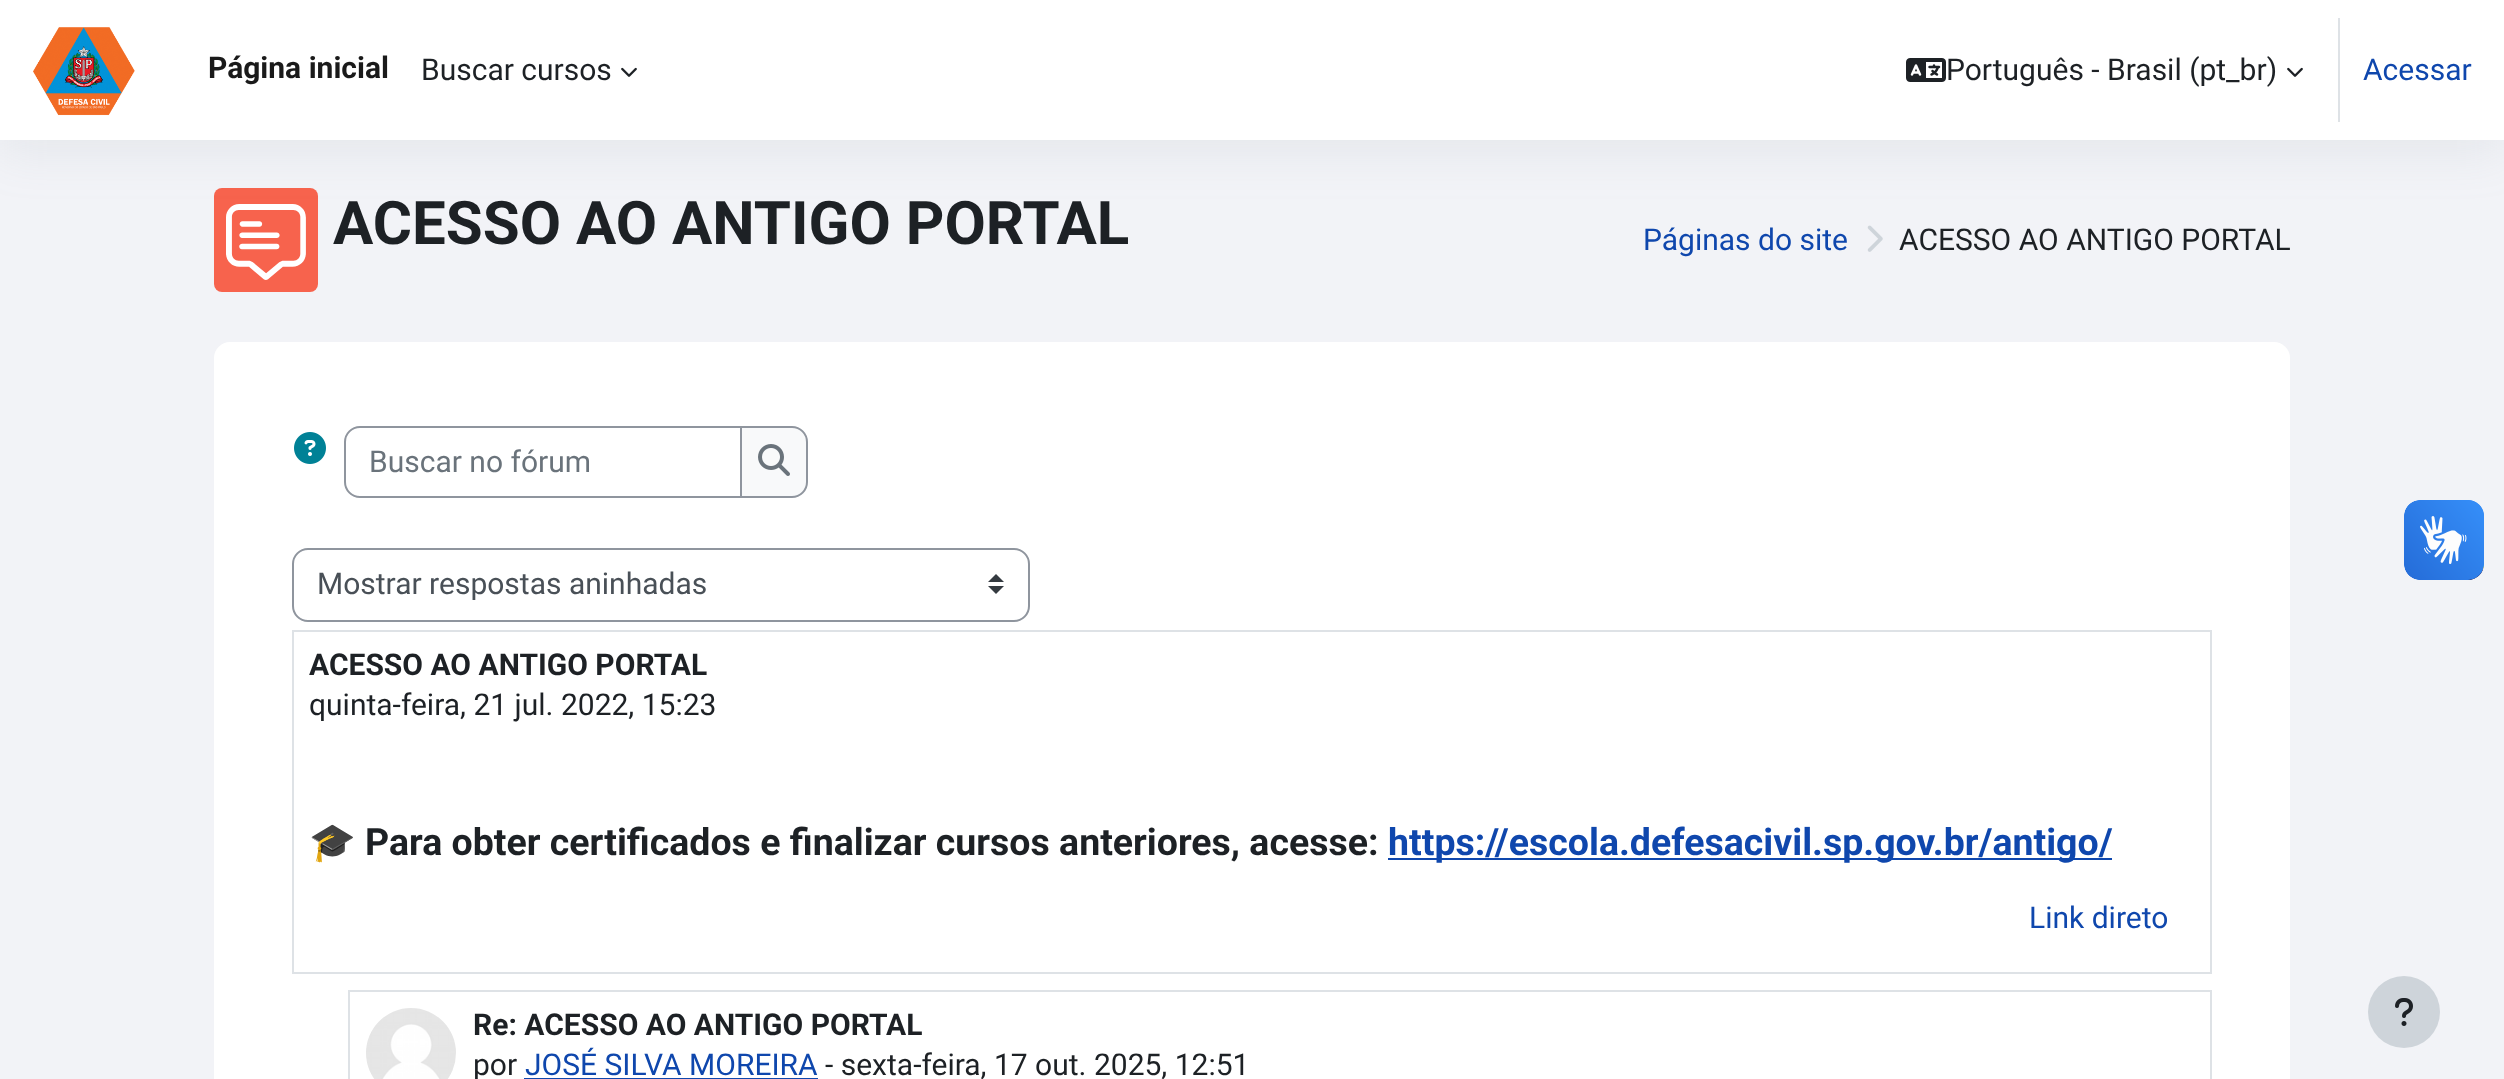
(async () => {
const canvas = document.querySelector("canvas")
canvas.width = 2504
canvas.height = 1079
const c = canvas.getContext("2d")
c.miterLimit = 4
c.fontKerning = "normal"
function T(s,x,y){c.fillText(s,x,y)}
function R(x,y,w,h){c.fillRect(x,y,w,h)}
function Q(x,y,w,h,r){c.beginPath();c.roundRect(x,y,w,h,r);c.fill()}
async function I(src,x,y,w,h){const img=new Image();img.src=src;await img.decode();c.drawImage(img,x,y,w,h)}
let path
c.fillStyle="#f2f3f7"
R(0,0,2504,1079)
c.fillStyle="#f7634d"
Q(214,188,104,104,8)
await I("4.png",226,204,80,76)
c.fillStyle="#8c98a421"
c.filter="blur(24px)"
c.beginPath()
c.rect(0,12,2504,140)
c.fill()
c.filter="none"
c.fillStyle="#fff"
R(0,0,2504,140)
await I("1.png",33,27,102,89)
c.font="bold 30px Roboto"
c.fillStyle="#1a1a1a"
T("Página inicial",208,78)
c.font="30px Roboto"
c.fillStyle="#1d2125"
T("Buscar cursos",421,80)
await I("2.png",621,67,16,10)
await I("3.png",1906,58,40,24)
T("Português - Brasil (pt_br)",1946,80)
await I("2.png",2287,67,16,10)
c.fillStyle="#dee2e6"
R(2338,18,2,104)
c.fillStyle="#0f47ad"
T("Acessar",2363,80)
c.font="bold 60px Roboto"
c.fillStyle="#1d2125"
T("ACESSO AO ANTIGO PORTAL",333,244)
c.font="30px Roboto"
c.fillStyle="#0f47ad"
T("Páginas do site",1643,250)
await I("5.png",1867,225,16,27)
c.fillStyle="#1d2125"
T("ACESSO AO ANTIGO PORTAL",1899,250)
c.fillStyle="#fff"
Q(214,342,2076,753,16)
await I("6.png",294,432,32,32)
c.beginPath()
c.roundRect(345,427,396,70,[15,0,0,15])
c.strokeStyle="#8f959e"
c.lineWidth=2
c.stroke()
c.fillStyle="#6a737b"
T("Buscar no fórum",369,472)
c.fillStyle="#f8f9fa"
c.beginPath()
c.roundRect(741,427,66,70,[0,15,15,0])
c.fill()
c.stroke()
await I("7.png",758,444,32,32)
c.fillStyle="#343a40"
path = new Path2D("M996 574l-8 8h16zm0 20l-8-8h16z")
c.fill(path)
c.beginPath()
c.roundRect(293,549,736,72,15)
c.stroke()
c.fillStyle="#495057"
T("Mostrar respostas aninhadas",317,594)
c.strokeStyle="#dee2e6"
c.strokeRect(293,631,1918,342)
c.font="bold 30px Roboto"
c.fillStyle="#1d2125"
T("ACESSO AO ANTIGO PORTAL",309,675)
c.font="30px Roboto"
T("quinta-feira, 21 jul. 2022, 15:23",309,715)
c.save()
c.beginPath()
c.rect(310,776,1884,180)
c.clip()
c.font="bold 37.5px Noto Color Emoji"
T("🎓",309,855)
c.restore()
c.font="bold 37.5px Roboto"
T("Para obter certificados e finalizar cursos anteriores, acesse:",365,855)
c.fillStyle="#0f47ad"
R(1388,858,724,2)
T("https://escola.defesacivil.sp.gov.br/antigo/",1388,855)
c.font="30px Roboto"
T("Link direto",2029,928)
c.strokeRect(349,991,1862,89)
await I("8.png",366,1008,90,71)
c.font="bold 30px Roboto"
c.fillStyle="#1d2125"
T("Re: ACESSO AO ANTIGO PORTAL",473,1035)
c.font="30px Roboto"
T("por",473,1075)
c.fillStyle="#0f47ad"
T("JOSÉ SILVA MOREIRA",525,1075)
R(524,1078,294,1)
c.fillStyle="#1d2125"
T("- sexta-feira, 17 out. 2025, 12:51",825,1075)
c.fillStyle="#ced4da"
c.beginPath()
c.arc(2404,1012,36,0,7)
c.fill()
await I("9.png",2395,998,18,28)
await I("10.png",2404,500,80,80)
await I("11.png",2404,500,80,80)
})()
